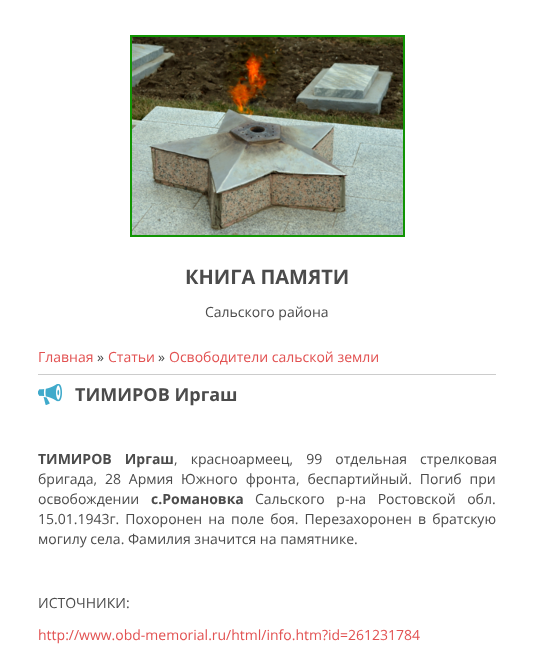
(async () => {
const canvas = document.querySelector("canvas")
canvas.width = 534
canvas.height = 658
const c = canvas.getContext("2d")
c.miterLimit = 4
c.fontKerning = "normal"
function T(s,x,y){c.fillText(s,x,y)}
function R(x,y,w,h){c.fillRect(x,y,w,h)}
async function I(src,x,y,w,h){const img=new Image();img.src=src;await img.decode();c.drawImage(img,x,y,w,h)}
c.fillStyle="#fff"
R(0,0,534,658)
await I("1.png",130,35,275,202)
c.font="bold 20px Open Sans"
c.fillStyle="#4b4b4b"
T("КНИГА ПАМЯТИ",185,284)
c.font="14px Open Sans"
T("Сальского района",205,317)
c.fillStyle="#e25151"
T("Главная",38,362)
c.fillStyle="#4b4b4b"
T("»",97,362)
c.fillStyle="#e25151"
T("Статьи",108,362)
c.fillStyle="#4b4b4b"
T("»",158,362)
c.fillStyle="#e25151"
T("Освободители сальской земли",169,362)
c.fillStyle="#ccc"
R(38,374,458,1)
await I("2.png",38,384,24,21)
c.font="bold 18px Open Sans"
c.fillStyle="#4b4b4b"
T("ТИМИРОВ Иргаш",75,401)
c.wordSpacing="9.5px"
c.font="bold 14px Open Sans"
T("ТИМИРОВ Иргаш",38,464)
c.font="14px Open Sans"
T(", красноармеец, 99 отдельная стрелковая",174,464)
c.wordSpacing="4.25px"
T("бригада, 28 Армия Южного фронта, беспартийный. Погиб при",38,484)
c.wordSpacing="0px"
T("освобождении",38,504)
c.font="bold 14px Open Sans"
T("с.Романовка",151,504)
c.wordSpacing="8px"
c.font="14px Open Sans"
T("Сальского р-на Ростовской обл.",255,504)
c.wordSpacing="2.5px"
T("15.01.1943г. Похоронен на поле боя. Перезахоронен в братскую",38,524)
c.wordSpacing="0px"
T("могилу села. Фамилия значится на памятнике.",38,544)
T("ИСТОЧНИКИ:",38,608)
c.fillStyle="#e25151"
T("http://www.obd-memorial.ru/html/info.htm?id=261231784",38,640)
})()
